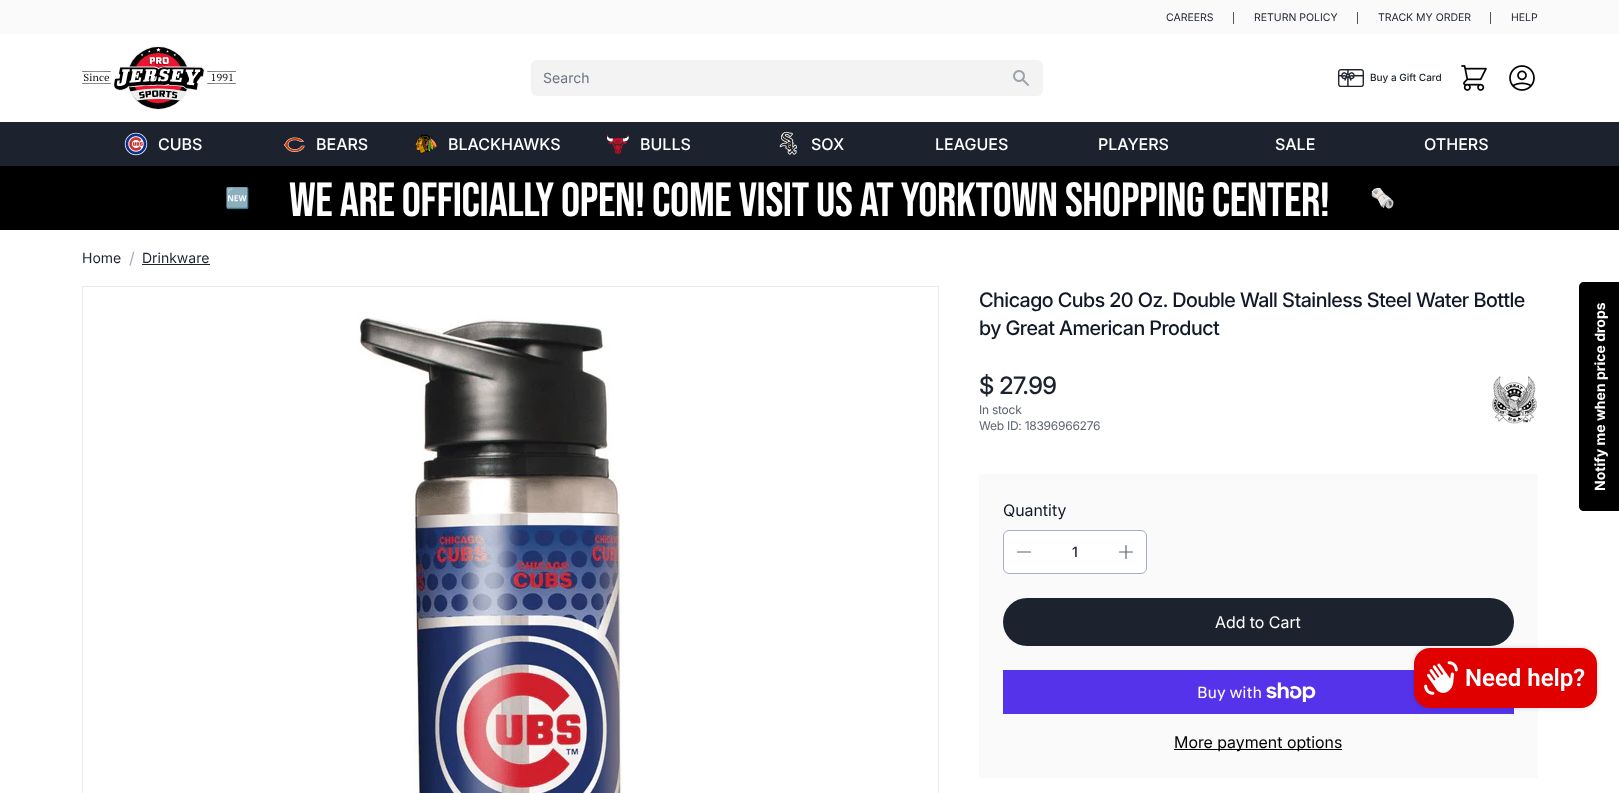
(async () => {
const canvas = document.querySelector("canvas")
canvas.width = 1619
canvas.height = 793
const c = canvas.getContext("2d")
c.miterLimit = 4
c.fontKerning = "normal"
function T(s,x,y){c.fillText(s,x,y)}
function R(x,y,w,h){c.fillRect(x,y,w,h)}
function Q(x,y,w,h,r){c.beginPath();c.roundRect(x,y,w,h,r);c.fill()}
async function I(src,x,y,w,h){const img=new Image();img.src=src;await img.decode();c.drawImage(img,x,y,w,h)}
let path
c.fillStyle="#fff"
R(0,0,1619,793)
c.fillStyle="#fafafa"
R(0,0,1619,34)
c.font="10.5px Inter"
c.fillStyle="#1d232e"
T("CAREERS",1166,21)
c.fillStyle="#4b5563"
R(1233,12,1,12)
c.fillStyle="#1d232e"
T("RETURN POLICY",1254,21)
c.fillStyle="#4b5563"
R(1357,12,1,12)
c.fillStyle="#1d232e"
T("TRACK MY ORDER",1378,21)
c.fillStyle="#4b5563"
R(1490,12,1,12)
c.fillStyle="#1d232e"
T("HELP",1511,21)
await I("1.png",82,46,154,64)
c.fillStyle="#f3f3f3"
Q(531,60,512,36,6)
c.font="14px Inter"
c.fillStyle="#6b7280"
T("Search",543,83)
await I("2.png",1013,70,16,16)
await I("3.png",1338,69,26,18)
c.font="500 10px Inter"
c.fillStyle="#1d232e"
T("Buy a Gift Card",1370,81)
await I("4.png",1461,65,26,26)
await I("5.png",1509,65,26,26)
R(0,122,1619,44)
await I("6.png",124,132,24,24)
c.font="500 16px Inter"
c.fillStyle="#fff"
T("CUBS",158,150)
await I("7.png",283,137,22,15)
T("BEARS",316,150)
await I("8.png",415,134,22,20)
T("BLACKHAWKS",448,150)
await I("9.png",607,133,22,21)
T("BULLS",640,150)
await I("10.png",779,131,18,24)
T("SOX",811,150)
T("LEAGUES",935,150)
T("PLAYERS",1098,150)
T("SALE",1275,150)
T("OTHERS",1424,150)
c.fillStyle="#000"
R(0,166,1619,64)
c.letterSpacing="-0.4px"
c.font="20px Noto Color Emoji"
c.fillStyle="#fff"
T("🆕",225,205)
c.font="48px Bebas Neue"
T("We are officially open! Come visit us at Yorktown Shopping Center!",289,216)
c.font="20px Noto Color Emoji"
T("🗞️",1370,205)
c.letterSpacing="0px"
c.font="14px Inter"
c.fillStyle="#1d232e"
T("Home",82,263)
c.font="16px 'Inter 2'"
c.fillStyle="#a7b0c0"
T("/",129,264)
c.font="14px Inter"
c.fillStyle="#1d232e"
T("Drinkware",142,263)
R(142,264,68,1)
c.strokeStyle="#e7ecf3"
c.strokeRect(82.5,286.5,856,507)
await I("11.png",357,315,266,478)
c.letterSpacing="-0.5px"
c.font="500 20px 'Inter 2'"
c.fillStyle="#111827"
T("Chicago Cubs 20 Oz. Double Wall Stainless Steel Water Bottle",979,307)
T("by Great American Product",979,335)
c.font="500 24px 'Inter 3'"
c.fillStyle="#1d232e"
T("$ 27.99",979,394)
c.letterSpacing="-0.25px"
c.font="12px Inter"
c.fillStyle="#5d6470"
T("In stock",979,414)
T("Web ID: 18396966276",979,430)
await I("12.png",1492,376,45,48)
c.fillStyle="#fafafa"
R(979,474,559,304)
c.letterSpacing="0px"
c.font="16px 'Inter 2'"
c.fillStyle="#111827"
T("Quantity",1003,516)
c.fillStyle="#fff"
c.beginPath()
c.roundRect(1003.5,530.5,143,43,5.5)
c.fill()
c.strokeStyle="#a7b0c0"
c.stroke()
path = new Path2D("M1030.5 552h-13")
c.strokeStyle="#5d6470"
c.lineWidth=1.2
c.lineCap="round"
c.lineJoin="round"
c.stroke(path)
c.font="500 14px Inter"
c.fillStyle="#1d232e"
T("1",1072,557)
path = new Path2D("M1126 545.5v13m6.5-6.5h-13")
c.stroke(path)
Q(1003,598,511,48,24)
c.font="16px 'Inter 2'"
c.fillStyle="#fff"
T("Add to Cart",1215,628)
c.fillStyle="#5433eb"
R(1003,670,511,44)
c.font="16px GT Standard"
c.fillStyle="#fff"
T("Buy with",1197,698)
await I("13.png",1266,682,50,20)
c.fillStyle="#000"
R(1174,749,168,1)
c.font="16px 'Inter 2'"
T("More payment options",1174,748)
path = new Path2D("M1579 506v-219c0-3 2-5 5-5h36v229h-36c-3 0-5-2-5-5z")
c.fill(path)
c.font="bold 14px Inter"
c.fillStyle="#fff"
c.save()
c.translate(1605,491)
c.rotate(-90 * Math.PI / 180)
c.fillText("Notify me when price drops",0,0)
c.restore()
c.fillStyle="#00000026"
c.filter="blur(2.5px)"
c.beginPath()
c.roundRect(1414,648,183,60,16)
c.fill()
c.filter="none"
c.fillStyle="#e10000"
Q(1414,648,183,60,16)
await I("14.png",1424,661,34,34)
c.font="600 24px Roboto"
c.fillStyle="#fff"
T("Need help?",1465,686)
})()
